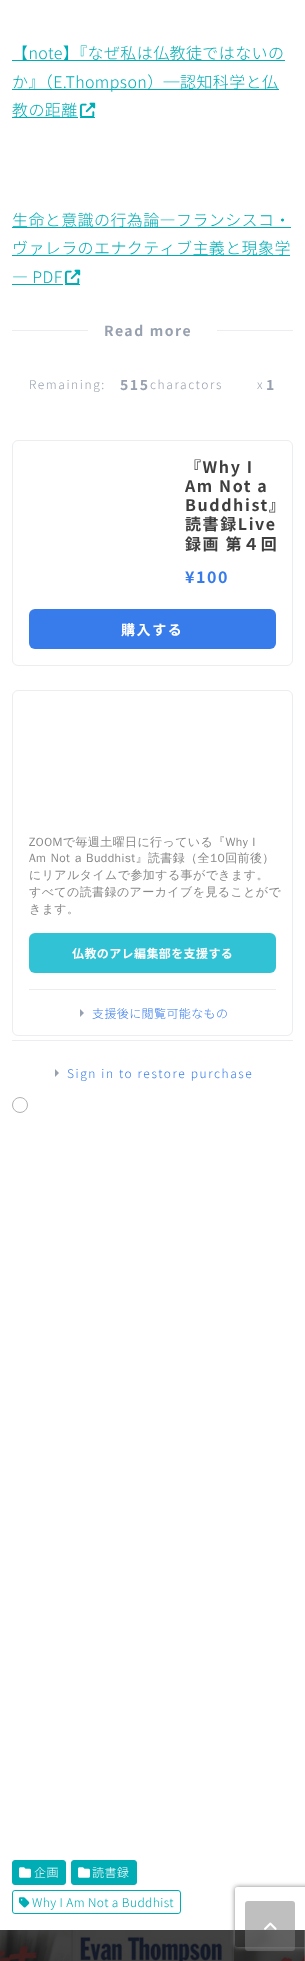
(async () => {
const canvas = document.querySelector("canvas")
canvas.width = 305
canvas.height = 1961
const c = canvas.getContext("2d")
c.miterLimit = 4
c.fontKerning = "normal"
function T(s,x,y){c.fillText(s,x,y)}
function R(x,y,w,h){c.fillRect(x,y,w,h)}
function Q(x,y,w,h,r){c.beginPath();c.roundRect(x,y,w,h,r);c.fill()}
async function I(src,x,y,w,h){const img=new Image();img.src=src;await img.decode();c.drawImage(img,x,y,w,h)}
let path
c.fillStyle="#fff"
R(0,0,305,1961)
c.fillStyle="#00adb5"
R(12,60,273,1)
c.letterSpacing="0.4px"
c.font="300 16px Noto Sans JP"
T("【note】『なぜ私は仏教徒ではないの",12,59)
R(12,89,267,1)
T("か』（E.Thompson）─認知科学と仏",12,88)
R(12,117,66,1)
T("教の距離",12,116)
R(80,117,15,1)
await I("1.png",80,102,16,15)
R(12,227,279,1)
T("生命と意識の行為論―フランシスコ・",12,226)
R(12,255,278,1)
T("ヴァレラのエナクティブ主義と現象学",12,254)
T("― PDF",12,283)
R(12,284,51,1)
R(65,284,15,1)
await I("1.png",65,269,16,15)
c.fillStyle="#ebedf0"
R(12,330,76,1)
c.letterSpacing="1.6px"
c.font="bold 14px Noto Sans JP"
c.fillStyle="#97a0ae"
T("Read more",104,336)
c.fillStyle="#ebedf0"
R(217,330,76,1)
c.font="300 12px Noto Sans JP"
c.fillStyle="#97a0ae"
T("Remaining:",29,389)
c.font="bold 14px Noto Sans JP"
T("515",120,390)
c.font="300 12px Noto Sans JP"
T("charactors",150,389)
T("x",257,389)
c.font="bold 14px Noto Sans JP"
T("1",266,390)
c.beginPath()
c.roundRect(12.5,440.5,280,225,5.5)
c.strokeStyle="#ebedf0"
c.stroke()
c.font="bold 16px Noto Sans JP"
c.fillStyle="#3e3e3e"
T("『Why I",185,473)
T("Am Not a",185,492)
T("Buddhist』",185,511)
T("読書録Live",185,530)
T("録画 第４回",185,550)
c.fillStyle="#387cec"
T("¥100",185,583)
Q(29,609,247,40,6)
c.font="bold 14px Noto Sans JP"
c.fillStyle="#fff"
T("購入する",121,635)
c.beginPath()
c.roundRect(12.5,690.5,280,345,5.5)
c.stroke()
c.letterSpacing="0.4px"
c.font="500 12px WenQuanYi Zen Hei"
c.fillStyle="#888"
T("ZOOMで毎週土曜日に行っている『Why I",29,846)
c.wordSpacing="0.5px"
T("Am Not a Buddhist』読書録（全10回前後）",29,862)
c.wordSpacing="0px"
T("にリアルタイムで参加する事ができます。",29,879)
T("すべての読書録のアーカイブを見ることがで",29,896)
T("きます。",29,913)
c.fillStyle="#32c2d5"
Q(29,933,247,40,6)
c.font="bold 12px Noto Sans JP"
c.fillStyle="#fff"
T("仏教のアレ編集部を支援する",72,958)
c.fillStyle="#ebedf0"
R(29,989,247,1)
c.fillStyle="#97a0ae"
path = new Path2D("M80 1017v-8l4 4z")
c.fill(path)
c.font="300 12px Noto Sans JP"
c.fillStyle="#387cec"
T("支援後に閲覧可能なもの",92,1018)
c.fillStyle="#ebedf0"
R(12,1040,281,1)
c.fillStyle="#97a0ae"
path = new Path2D("M55 1077v-8l4 4z")
c.fill(path)
c.letterSpacing="1.6px"
c.fillStyle="#387cec"
T("Sign in to restore purchase",67,1078)
c.beginPath()
c.arc(20,1105,7.5,0,7)
c.strokeStyle="#b1b1b1"
c.stroke()
c.fillStyle="#00adb5"
c.beginPath()
c.roundRect(12.5,1860.5,53,24,2.5)
c.fill()
c.strokeStyle="#00adb5"
c.stroke()
await I("2.png",19,1867,12,11)
c.letterSpacing="0.4px"
c.fillStyle="#fff"
T("企画",34,1877)
c.fillStyle="#00adb5"
c.beginPath()
c.roundRect(71.5,1860.5,65,24,2.5)
c.fill()
c.stroke()
await I("2.png",78,1867,12,11)
c.fillStyle="#fff"
T("読書録",92,1877)
c.beginPath()
c.roundRect(12.5,1890.5,168,23,2.5)
c.stroke()
await I("3.png",19,1897,11,11)
c.fillStyle="#00adb5"
T("Why I Am Not a Buddhist",32,1907)
await I("4.png",0,1930,305,31)
c.fillStyle="#80808080"
Q(245,1901,50,50,3)
await I("5.png",264,1922,13,8)
c.save()
path = new Path2D("M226 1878h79v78h-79zm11 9h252c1 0 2 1 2 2v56c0 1-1 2-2 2h-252c-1 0-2-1-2-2v-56c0-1 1-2 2-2z")
c.clip(path,"evenodd")
c.fillStyle="#808080"
c.filter="blur(2.5px)"
c.beginPath()
c.roundRect(235,1887,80,60,2)
c.fill()
c.filter="none"
c.restore()
})()
